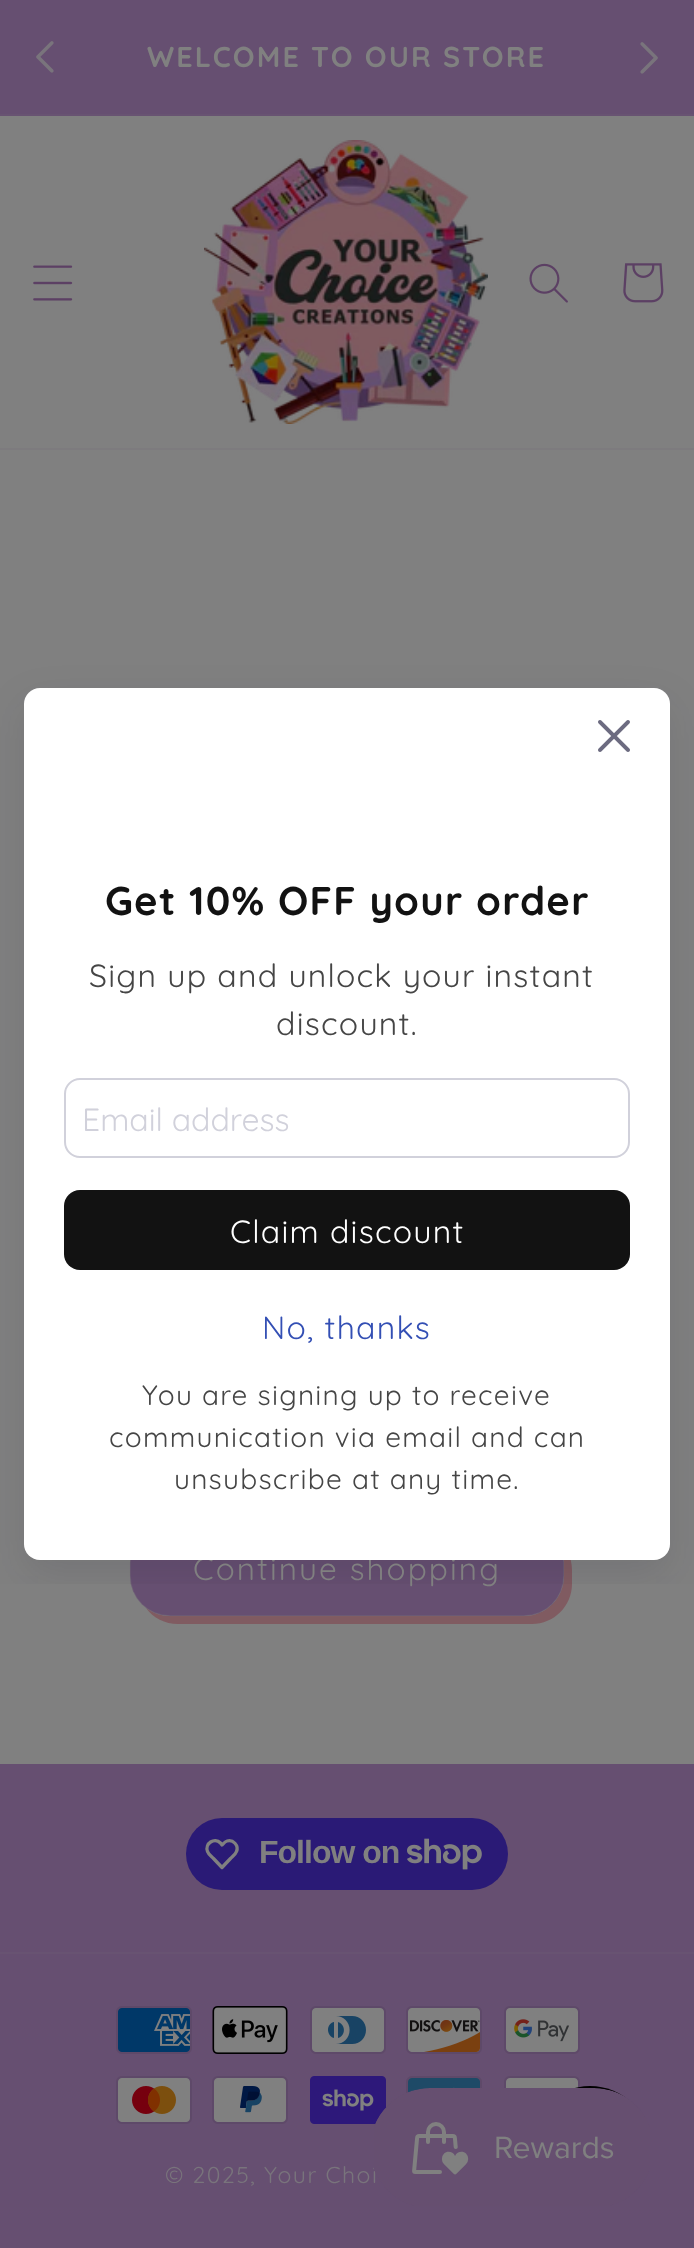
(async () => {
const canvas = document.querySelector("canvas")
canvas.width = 694
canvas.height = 2248
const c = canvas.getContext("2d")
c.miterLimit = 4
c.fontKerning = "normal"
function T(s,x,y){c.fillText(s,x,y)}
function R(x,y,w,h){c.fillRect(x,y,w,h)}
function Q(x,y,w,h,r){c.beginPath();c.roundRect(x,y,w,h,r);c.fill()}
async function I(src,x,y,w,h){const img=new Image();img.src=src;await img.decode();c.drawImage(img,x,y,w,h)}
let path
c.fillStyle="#808080"
R(0,0,694,2248)
c.fillStyle="#664f71"
R(0,0,694,114)
c.fillStyle="#685372"
R(0,114,694,2)
await I("1.png",36,41,18,32)
c.letterSpacing="2.1px"
c.font="bold 28.75px Quicksand"
c.fillStyle="#808080"
T("WELCOME TO OUR STORE",147,67)
await I("2.png",640,42,18,32)
c.fillStyle="#7d7b7e"
R(0,448,694,2)
await I("3.png",33,265,40,36)
await I("4.png",204,140,284,284)
await I("5.png",529,263,39,40)
await I("6.png",623,263,41,40)
c.fillStyle="#805b61"
path = new Path2D("M146 1608c7 10 19 16 32 16h354c22 0 40-18 40-40v-14c0-13-6-25-16-32c5 7 8 15 8 24v14c0 22-18 40-40 40h-354c-9 0-17-3-24-8z")
c.fill(path)
c.fillStyle="#664f71"
Q(130,1522,434,94,40)
c.beginPath()
c.roundRect(130.3,1522.3,433.4,93.4,39.7)
c.strokeStyle="#80808080"
c.lineWidth=0.6
c.stroke()
c.save()
c.beginPath()
c.rect(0,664,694,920)
c.clip()
c.fillStyle="#1211271a"
c.filter="blur(20px)"
c.beginPath()
c.roundRect(24,704,646,872,16)
c.fill()
c.filter="none"
c.restore()
c.font="31.5px Quicksand"
c.fillStyle="#808080"
T("Continue shopping",193,1580)
c.fillStyle="#fff"
Q(24,688,646,872,16)
await I("7.png",598,720,32,32)
c.letterSpacing="1.25px"
c.font="bold 40px Quicksand"
c.fillStyle="#121212"
T("Get 10% OFF your order",105,915)
c.font="32px Quicksand"
c.fillStyle="#454545"
T("Sign up and unlock your instant",89,987)
T("discount.",276,1035)
c.beginPath()
c.roundRect(65,1079,564,78,15)
c.strokeStyle="#d1d1db"
c.lineWidth=2
c.stroke()
c.letterSpacing="0px"
c.fillStyle="#d1d1db"
T("Email address",82,1131)
c.fillStyle="#121212"
Q(64,1190,566,80,16)
c.letterSpacing="1.25px"
c.fillStyle="#fff"
T("Claim discount",230,1243)
c.fillStyle="#334fb4"
T("No, thanks",262,1339)
c.font="28px Quicksand"
c.fillStyle="#454545"
T("You are signing up to receive",142,1405)
T("communication via email and can",109,1447)
T("unsubscribe at any time.",174,1489)
c.fillStyle="#664f71"
R(0,1764,694,484)
c.fillStyle="#2a1a76"
Q(186,1818,322,72,36)
path = new Path2D("M220.5 1843l1.5 2c1.5-1.5 3-3.5 5-4c6-2 12 4.5 9.5 10.5c-1 3-4 5-6 7l-8.5 9l-8.5-9c-2-2-5-4-6-7c-3-8 7-14.5 13-8.5z")
c.strokeStyle="#808080"
c.lineWidth=3.3
c.lineJoin="round"
c.stroke(path)
c.letterSpacing="-1px"
c.font="bold 32px Liberation Sans"
c.fillStyle="#808080"
T("Follow on",259,1863)
await I("8.png",407,1838,75,32)
c.fillStyle="#685372"
R(0,1952,694,2)
await I("9.png",116,2006,76,48)
await I("10.png",212,2006,76,48)
await I("11.png",310,2006,76,48)
await I("12.png",406,2006,76,48)
await I("13.png",504,2006,76,48)
await I("14.png",116,2076,76,48)
await I("15.png",212,2076,76,48)
await I("16.png",310,2076,76,48)
await I("17.png",406,2076,76,17)
await I("18.png",504,2076,76,12)
c.letterSpacing="1.5px"
c.font="23px Quicksand"
c.fillStyle="#79747c"
T("© 2025, Your Choi",165,2183)
c.fillStyle="#000"
c.beginPath()
c.arc(590,2146,60,0,7)
c.fill()
await I("19.png",374,2088,276,118)
})()
